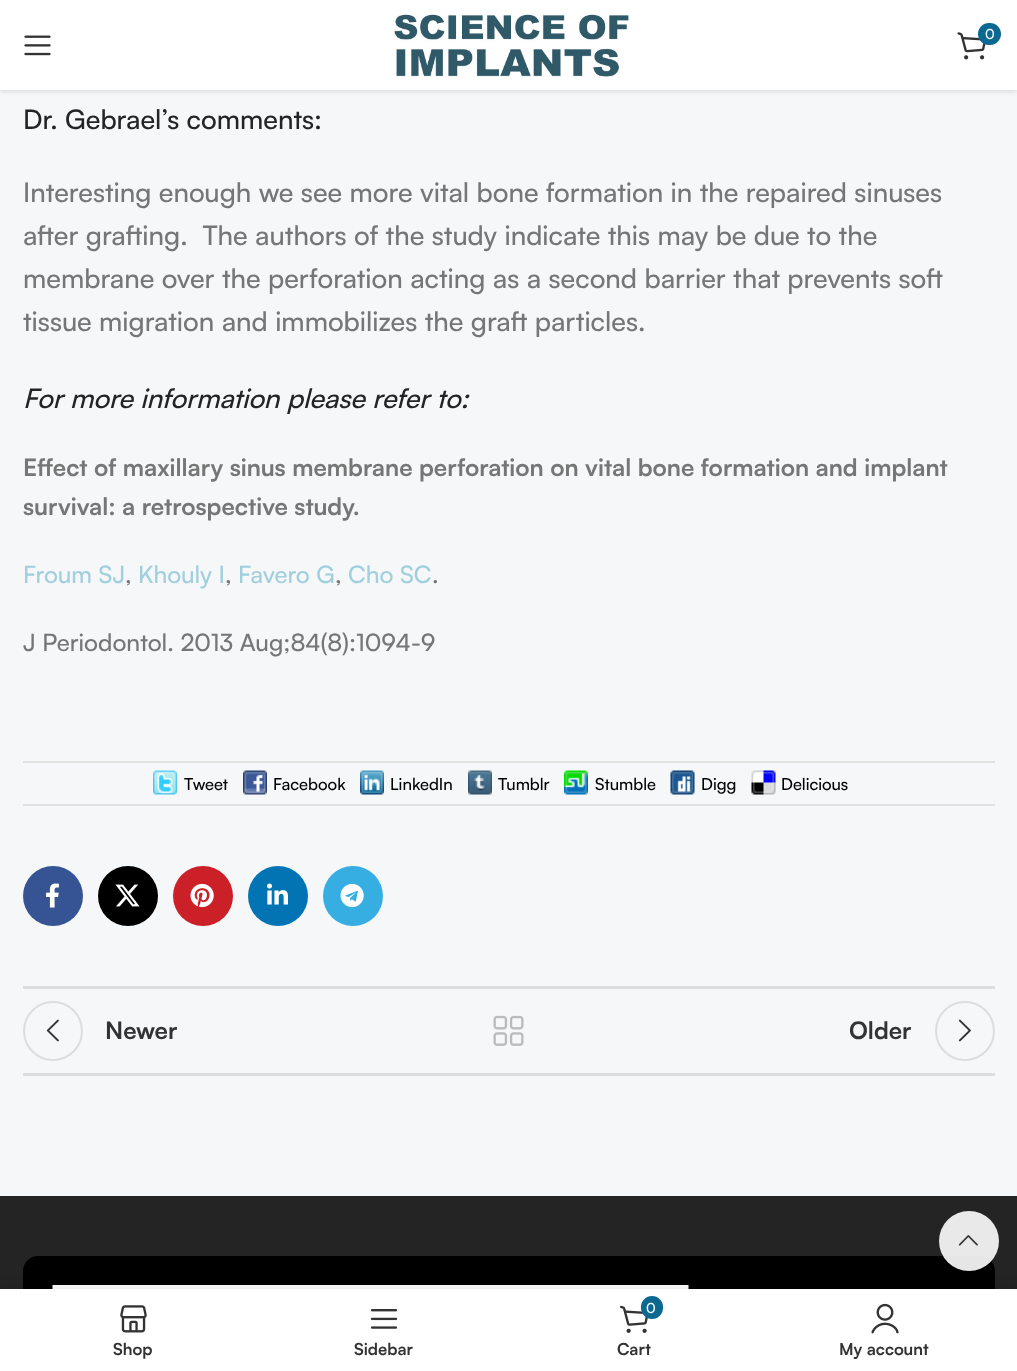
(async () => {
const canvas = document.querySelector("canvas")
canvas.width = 1017
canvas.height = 1371
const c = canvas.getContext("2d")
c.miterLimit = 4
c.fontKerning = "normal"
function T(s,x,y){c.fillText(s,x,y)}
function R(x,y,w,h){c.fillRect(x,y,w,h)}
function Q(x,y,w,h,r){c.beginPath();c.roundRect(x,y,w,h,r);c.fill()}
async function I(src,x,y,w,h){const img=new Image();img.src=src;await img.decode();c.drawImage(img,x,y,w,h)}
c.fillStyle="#f5f7f8"
R(0,0,1017,1371)
c.fillStyle="#0000001a"
c.filter="blur(2px)"
c.beginPath()
c.rect(0,2,1017,90)
c.fill()
c.filter="none"
c.fillStyle="#fff"
R(0,0,1017,90)
await I("1.png",24,35,27,21)
await I("2.png",394,13,236,64)
await I("3.png",957,32,29,28)
c.fillStyle="#0a6891"
Q(978,23,23,22,11)
c.font="500 14px Satoshi"
c.fillStyle="#fff"
T("0",985,39)
c.font="500 27px Satoshi"
c.fillStyle="#242424"
T("Dr. Gebrael’s comments:",23,129)
c.fillStyle="#767676"
T("Interesting enough we see more vital bone formation in the repaired sinuses",23,202)
T("after grafting.  The authors of the study indicate this may be due to the",23,245)
T("membrane over the perforation acting as a second barrier that prevents soft",23,288)
T("tissue migration and immobilizes the graft particles.",23,331)
c.font="italic 500 27px Satoshi"
c.fillStyle="#242424"
T("For more information please refer to:",23,408)
c.font="bold 24px Satoshi"
c.fillStyle="#767676"
T("Effect of maxillary sinus membrane perforation on vital bone formation and implant",23,476)
T("survival: a retrospective study.",23,515)
c.font="500 24px Satoshi"
c.fillStyle="#a1cfde"
T("Froum SJ",23,583)
c.fillStyle="#767676"
T(",",125,583)
c.fillStyle="#a1cfde"
T("Khouly I",138,583)
c.fillStyle="#767676"
T(",",225,583)
c.fillStyle="#a1cfde"
T("Favero G",238,583)
c.fillStyle="#767676"
T(",",335,583)
c.fillStyle="#a1cfde"
T("Cho SC",348,583)
c.fillStyle="#767676"
T(".",432,583)
T("J Periodontol. 2013 Aug;84(8):1094-9",23,651)
c.fillStyle="#e1e1e0"
R(23,761,972,2)
R(23,804,972,2)
await I("4.png",153,770,24,25)
c.font="500 16.5px Satoshi"
c.fillStyle="#000"
T("Tweet",184,790)
await I("5.png",243,770,24,25)
T("Facebook",273,790)
await I("6.png",360,770,24,25)
T("LinkedIn",390,790)
await I("7.png",468,770,24,25)
T("Tumblr",498,790)
await I("8.png",564,770,24,25)
T("Stumble",595,790)
await I("9.png",670,770,25,25)
T("Digg",701,790)
await I("10.png",751,770,25,25)
T("Delicious",781,790)
c.fillStyle="#365493"
c.beginPath()
c.arc(53,896,30,0,7)
c.fill()
await I("11.png",46,883,13,25)
c.fillStyle="#000"
c.beginPath()
c.arc(128,896,30,0,7)
c.fill()
await I("12.png",115,884,25,23)
c.fillStyle="#cb2027"
c.beginPath()
c.arc(203,896,30,0,7)
c.fill()
await I("13.png",190,883,24,25)
c.fillStyle="#0274b3"
c.beginPath()
c.arc(278,896,30,0,7)
c.fill()
await I("14.png",267,883,21,22)
c.fillStyle="#37aee2"
c.beginPath()
c.arc(353,896,30,0,7)
c.fill()
await I("15.png",340,883,24,25)
c.fillStyle="#dbddde"
R(23,986,972,3)
R(23,1073,972,3)
c.beginPath()
c.arc(53,1031,29,0,7)
c.strokeStyle="#dbddde"
c.lineWidth=2
c.stroke()
await I("16.png",46,1019,13,23)
c.font="bold 24px Satoshi"
c.fillStyle="#333"
T("Newer",105,1039)
await I("17.png",493,1015,31,31)
T("Older",849,1039)
c.beginPath()
c.arc(965,1031,29,0,7)
c.stroke()
await I("18.png",958,1019,13,23)
c.fillStyle="#242424"
R(0,1196,1017,93)
c.fillStyle="#000"
Q(23,1256,972,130,15)
await I("19.png",52,1285,637,4)
c.fillStyle="#ffffffe6"
c.beginPath()
c.arc(969,1241,30,0,7)
c.fill()
await I("20.png",958,1235,20,11)
c.fillStyle="#0000001f"
c.filter="blur(7px)"
c.beginPath()
c.rect(0,1289,1017,82)
c.fill()
c.filter="none"
c.fillStyle="#fff"
R(0,1289,1017,82)
await I("21.png",120,1305,27,28)
c.font="bold 16.5px Satoshi"
c.fillStyle="#333"
T("Shop",113,1355)
await I("22.png",370,1309,28,20)
T("Sidebar",354,1355)
await I("23.png",620,1305,28,28)
c.fillStyle="#0a6891"
Q(641,1296,22,23,11)
c.font="500 14px Satoshi"
c.fillStyle="#fff"
T("0",646,1313)
c.font="bold 16.5px Satoshi"
c.fillStyle="#333"
T("Cart",617,1355)
await I("24.png",871,1303,28,31)
T("My account",839,1355)
})()
